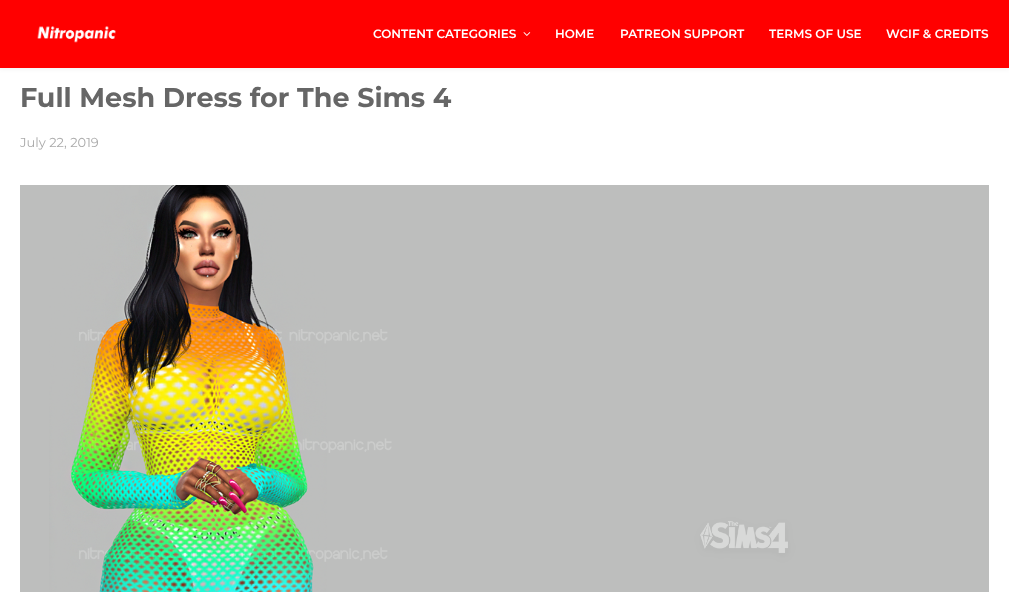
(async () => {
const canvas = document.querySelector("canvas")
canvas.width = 1009
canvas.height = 592
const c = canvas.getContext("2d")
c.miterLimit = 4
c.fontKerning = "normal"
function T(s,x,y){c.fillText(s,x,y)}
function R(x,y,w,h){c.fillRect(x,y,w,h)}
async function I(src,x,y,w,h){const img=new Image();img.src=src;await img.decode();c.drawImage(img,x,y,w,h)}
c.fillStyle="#fff"
R(0,0,1009,592)
c.fillStyle="#0000000d"
c.filter="blur(2.5px)"
c.beginPath()
c.rect(-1,-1,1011,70)
c.fill()
c.filter="none"
c.fillStyle="#f00"
R(0,0,1009,68)
await I("1.png",37,26,79,17)
c.font="600 12px Montserrat"
c.fillStyle="#fff"
T("CONTENT CATEGORIES",373,38)
await I("2.png",523,32,8,4)
T("HOME",555,38)
T("PATREON SUPPORT",620,38)
T("TERMS OF USE",769,38)
T("WCIF & CREDITS",886,38)
c.font="bold 27px Montserrat"
c.fillStyle="#666"
T("Full Mesh Dress for The Sims 4",20,107)
c.font="13px Montserrat"
c.fillStyle="#aaa"
T("July 22, 2019",20,147)
await I("3.png",20,185,969,407)
})()
